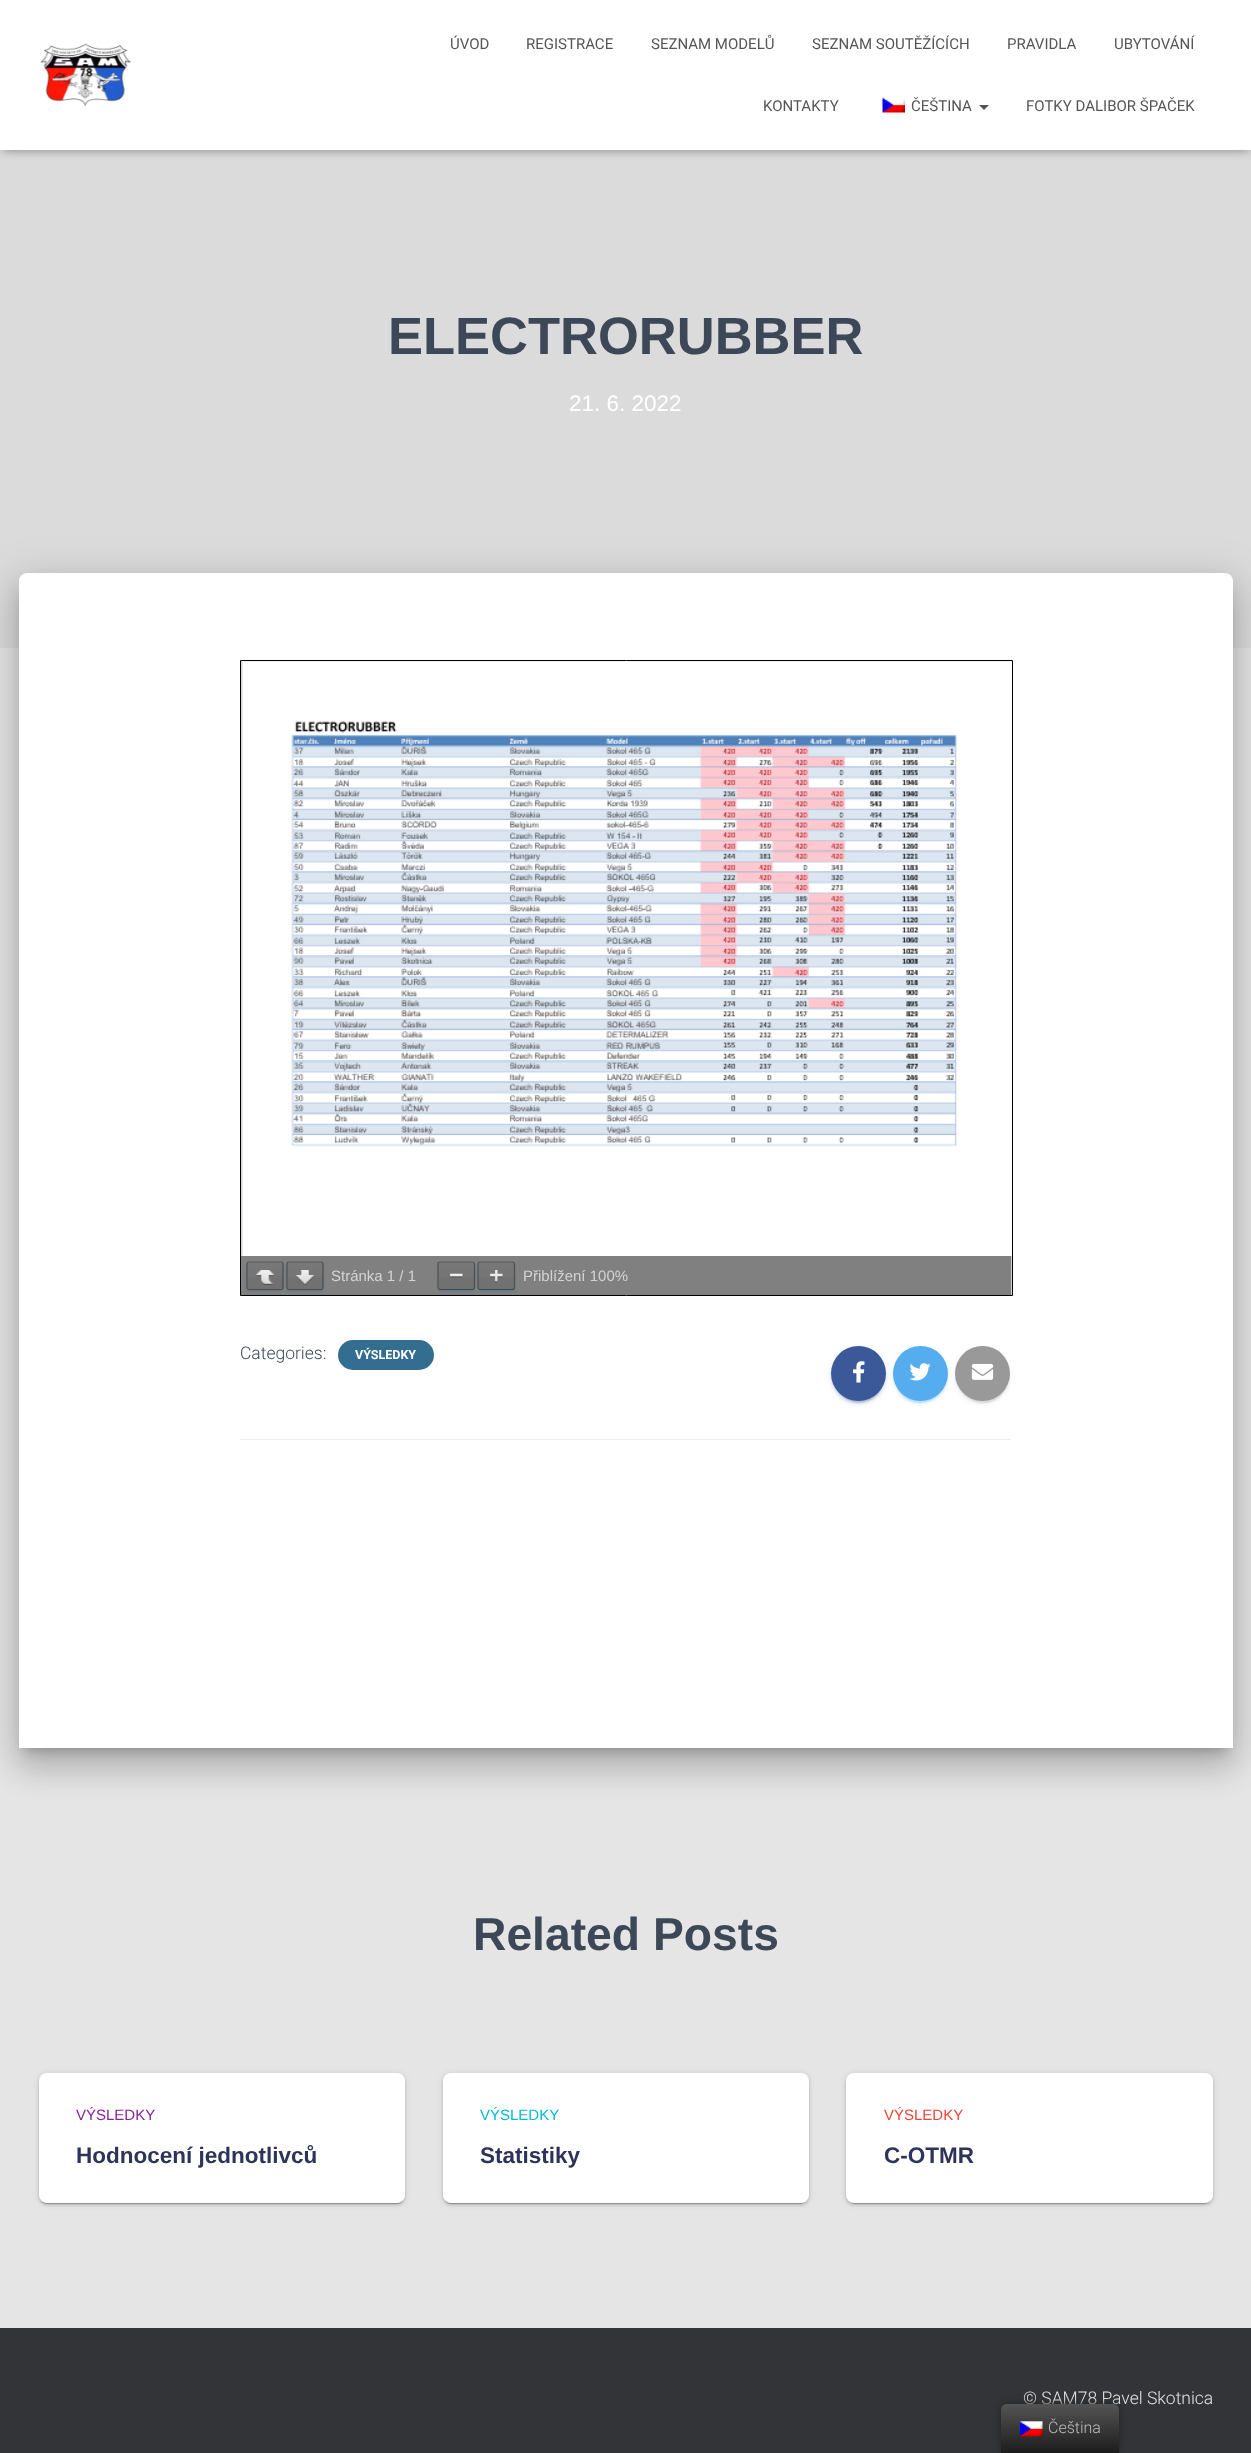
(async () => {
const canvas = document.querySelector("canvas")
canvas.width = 1251
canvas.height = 2453
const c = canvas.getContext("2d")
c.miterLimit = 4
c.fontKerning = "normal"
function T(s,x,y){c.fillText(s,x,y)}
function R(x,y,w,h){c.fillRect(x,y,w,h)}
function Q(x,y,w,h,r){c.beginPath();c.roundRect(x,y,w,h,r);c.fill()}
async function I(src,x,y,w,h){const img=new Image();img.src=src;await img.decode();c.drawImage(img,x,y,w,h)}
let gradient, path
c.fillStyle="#e5e5e5"
R(0,0,1251,2453)
c.fillStyle="#dbdbdb"
R(0,150,1251,498)
c.fillStyle="#0000001a"
c.filter="blur(3px)"
c.beginPath()
c.rect(3,8,1246,145)
c.fill()
c.filter="none"
c.fillStyle="#0000001f"
c.filter="blur(6px)"
c.beginPath()
c.rect(0,1,1251,150)
c.fill()
c.filter="none"
c.fillStyle="#0000006b"
c.filter="blur(6px)"
c.beginPath()
c.rect(8,9,1236,135)
c.fill()
c.filter="none"
c.fillStyle="#fff"
R(0,0,1251,150)
await I("1.png",40,43,91,64)
c.font="15px Roboto"
c.fillStyle="#555"
T("ÚVOD",450,49)
T("REGISTRACE",526,49)
T("SEZNAM MODELŮ",651,49)
T("SEZNAM SOUTĚŽÍCÍCH",812,49)
T("PRAVIDLA",1007,49)
T("UBYTOVÁNÍ",1114,49)
T("KONTAKTY",763,111)
await I("2.png",882,97,23,16)
T("ČEŠTINA",911,111)
path = new Path2D("M979 105h10l-5 5z")
c.fill(path)
T("FOTKY DALIBOR ŠPAČEK",1026,111)
c.font="bold 52.5px Liberation Sans"
c.fillStyle="#3c4858"
T("ELECTRORUBBER",388,354)
c.font="22.5px Liberation Sans"
c.fillStyle="#fff"
T("21. 6. 2022",569,411)
c.fillStyle="#00000033"
c.filter="blur(6px)"
c.beginPath()
c.roundRect(25,589,1201,1162,1)
c.fill()
c.filter="none"
c.fillStyle="#0000001f"
c.filter="blur(19px)"
c.beginPath()
c.roundRect(13,574,1226,1187,14)
c.fill()
c.filter="none"
c.fillStyle="#00000024"
c.filter="blur(15px)"
c.beginPath()
c.roundRect(16,590,1219,1180,10)
c.fill()
c.filter="none"
c.fillStyle="#fff"
c.beginPath()
c.roundRect(19,573,1214,1175,[8,8,0,0])
c.fill()
c.fillStyle="#d3d3d3"
c.beginPath()
c.rect(240.5,660.5,772,635)
c.fill()
c.strokeStyle="#000"
c.stroke()
await I("3.png",242,661,770,596)
c.fillStyle="#808080"
R(241,1256,770,39)
c.fillStyle="#336d8f33"
c.filter="blur(0.5px)"
c.beginPath()
c.rect(249,1268,32,23)
c.fill()
c.filter="none"
c.fillStyle="#336d8f24"
c.filter="blur(1px)"
c.beginPath()
c.roundRect(246,1264,38,29,2.5)
c.fill()
c.filter="none"
c.fillStyle="#717171"
Q(248,1263,35,26,1)
gradient = c.createLinearGradient(265,1263,265,1289)
gradient.addColorStop(0,"#ffffff0d")
gradient.addColorStop(1,"#ffffff00")
c.fillStyle = gradient
R(248,1263,35,15)
path = new Path2D("M247.5 1262.5l1-.5h33l1 .5")
c.strokeStyle="#575757"
c.lineWidth=1.2
c.stroke(path)
path = new Path2D("M282.5 1262.5l.5 1.5v23.5l-.5 1.5")
c.strokeStyle="#00000061"
c.stroke(path)
path = new Path2D("M282.5 1289l-1 .5h-33l-1-.5")
c.strokeStyle="#4a4a4a"
c.stroke(path)
path = new Path2D("M247.5 1289l-.5-1.5v-23.5l.5-1.5")
c.strokeStyle="#00000061"
c.stroke(path)
await I("4.png",256,1270,18,15)
c.fillStyle="#336d8f33"
c.filter="blur(0.5px)"
c.beginPath()
c.rect(289,1268,32,23)
c.fill()
c.filter="none"
c.fillStyle="#336d8f24"
c.filter="blur(1px)"
c.beginPath()
c.roundRect(286,1264,38,29,2.5)
c.fill()
c.filter="none"
c.fillStyle="#717171"
Q(288,1263,35,26,1)
gradient = c.createLinearGradient(305,1263,305,1289)
gradient.addColorStop(0,"#ffffff0d")
gradient.addColorStop(1,"#ffffff00")
c.fillStyle = gradient
R(288,1263,35,15)
path = new Path2D("M287.5 1262.5l1-.5h33l1 .5")
c.strokeStyle="#575757"
c.stroke(path)
path = new Path2D("M322.5 1262.5l.5 1.5v23.5l-.5 1.5")
c.strokeStyle="#00000061"
c.stroke(path)
path = new Path2D("M322.5 1289l-1 .5h-33l-1-.5")
c.strokeStyle="#4a4a4a"
c.stroke(path)
path = new Path2D("M287.5 1289l-.5-1.5v-23.5l.5-1.5")
c.strokeStyle="#00000061"
c.stroke(path)
await I("5.png",296,1270,18,15)
c.font="15px Liberation Sans"
c.fillStyle="#d3d3d3"
T("Stránka 1 / 1",331,1281)
c.fillStyle="#336d8f33"
c.filter="blur(0.5px)"
c.beginPath()
c.rect(440,1268,33,23)
c.fill()
c.filter="none"
c.fillStyle="#336d8f24"
c.filter="blur(1px)"
c.beginPath()
c.roundRect(438,1264,37,29,2.5)
c.fill()
c.filter="none"
c.fillStyle="#717171"
Q(439,1263,35,26,1)
gradient = c.createLinearGradient(456,1263,456,1289)
gradient.addColorStop(0,"#ffffff0d")
gradient.addColorStop(1,"#ffffff00")
c.fillStyle = gradient
R(439,1263,35,15)
path = new Path2D("M438.5 1262.5l1.5-.5h32.5l1.5 .5")
c.strokeStyle="#575757"
c.stroke(path)
path = new Path2D("M474 1262.5l.5 1.5v23.5l-.5 1.5")
c.strokeStyle="#00000061"
c.stroke(path)
path = new Path2D("M474 1289l-1.5 .5h-32.5l-1.5-.5")
c.strokeStyle="#0000006b"
c.stroke(path)
path = new Path2D("M438.5 1289l-.5-1.5v-23.5l.5-1.5")
c.strokeStyle="#00000061"
c.stroke(path)
await I("6.png",449,1273,14,5)
c.fillStyle="#336d8f33"
c.filter="blur(0.5px)"
c.beginPath()
c.rect(480,1268,33,23)
c.fill()
c.filter="none"
c.fillStyle="#336d8f24"
c.filter="blur(1px)"
c.beginPath()
c.roundRect(478,1264,37,29,2.5)
c.fill()
c.filter="none"
c.fillStyle="#717171"
Q(479,1263,35,26,1)
gradient = c.createLinearGradient(496,1263,496,1289)
gradient.addColorStop(0,"#ffffff0d")
gradient.addColorStop(1,"#ffffff00")
c.fillStyle = gradient
R(479,1263,35,15)
path = new Path2D("M478.5 1262.5l1.5-.5h32.5l1.5 .5")
c.strokeStyle="#575757"
c.stroke(path)
path = new Path2D("M514 1262.5l.5 1.5v23.5l-.5 1.5")
c.strokeStyle="#00000061"
c.stroke(path)
path = new Path2D("M514 1289l-1.5 .5h-32.5l-1.5-.5")
c.strokeStyle="#0000006b"
c.stroke(path)
path = new Path2D("M478.5 1289l-.5-1.5v-23.5l.5-1.5")
c.strokeStyle="#00000061"
c.stroke(path)
await I("7.png",489,1270,14,13)
c.fillStyle="#d3d3d3"
T("Přiblížení 100%",523,1281)
c.font="300 17.5px Roboto"
c.fillStyle="#3c4858"
T("Categories:",240,1359)
c.fillStyle="#336d8f"
Q(338,1340,96,30,15)
c.font="bold 12.5px Roboto"
c.fillStyle="#fff"
T("VÝSLEDKY",355,1359)
c.fillStyle="#3b59981f"
c.filter="blur(3px)"
c.beginPath()
c.roundRect(831,1348,55,55,27.5)
c.fill()
c.filter="none"
c.fillStyle="#3b599833"
c.filter="blur(0.5px)"
c.beginPath()
c.roundRect(834,1353,50,50,25)
c.fill()
c.filter="none"
c.fillStyle="#3b599824"
c.filter="blur(1px)"
c.beginPath()
c.roundRect(831,1349,55,55,27.5)
c.fill()
c.filter="none"
c.fillStyle="#3b5998"
c.beginPath()
c.arc(858.5,1373.5,27.5,0,7)
c.fill()
await I("8.png",853,1361,12,22)
c.fillStyle="#55acee1f"
c.filter="blur(3px)"
c.beginPath()
c.roundRect(893,1348,55,55,27.5)
c.fill()
c.filter="none"
c.fillStyle="#55acee33"
c.filter="blur(0.5px)"
c.beginPath()
c.roundRect(895,1353,50,50,25)
c.fill()
c.filter="none"
c.fillStyle="#55acee24"
c.filter="blur(1px)"
c.beginPath()
c.roundRect(893,1349,55,55,27.5)
c.fill()
c.filter="none"
c.fillStyle="#55acee"
c.beginPath()
c.arc(920.5,1373.5,27.5,0,7)
c.fill()
await I("9.png",909,1363,22,18)
c.fillStyle="#9999991f"
c.filter="blur(3px)"
c.beginPath()
c.roundRect(955,1348,55,55,27.5)
c.fill()
c.filter="none"
c.fillStyle="#99999933"
c.filter="blur(0.5px)"
c.beginPath()
c.roundRect(958,1353,50,50,25)
c.fill()
c.filter="none"
c.fillStyle="#99999924"
c.filter="blur(1px)"
c.beginPath()
c.roundRect(955,1349,55,55,27.5)
c.fill()
c.filter="none"
c.fillStyle="#999"
c.beginPath()
c.arc(982.5,1373.5,27.5,0,7)
c.fill()
await I("10.png",971,1363,23,17)
c.fillStyle="#eee"
R(240,1439,771,1)
c.font="bold 46.25px Liberation Sans"
c.fillStyle="#3c4858"
T("Related Posts",473,1950)
c.fillStyle="#0000001f"
c.filter="blur(3px)"
c.beginPath()
c.roundRect(39,2074,366,130,8)
c.fill()
c.filter="none"
c.fillStyle="#00000033"
c.filter="blur(0.5px)"
c.beginPath()
c.roundRect(41,2079,362,125,5)
c.fill()
c.filter="none"
c.fillStyle="#00000024"
c.filter="blur(1px)"
c.beginPath()
c.roundRect(39,2075,366,130,8)
c.fill()
c.filter="none"
c.fillStyle="#fff"
Q(39,2073,366,130,8)
c.font="15px Liberation Sans"
c.fillStyle="#89229b"
T("VÝSLEDKY",76,2120)
c.font="bold 22.5px Liberation Sans"
c.fillStyle="#2d3359"
T("Hodnocení jednotlivců",76,2163)
c.fillStyle="#0000001f"
c.filter="blur(3px)"
c.beginPath()
c.roundRect(443,2074,366,130,8)
c.fill()
c.filter="none"
c.fillStyle="#00000033"
c.filter="blur(0.5px)"
c.beginPath()
c.roundRect(445,2079,361,125,5)
c.fill()
c.filter="none"
c.fillStyle="#00000024"
c.filter="blur(1px)"
c.beginPath()
c.roundRect(443,2075,366,130,8)
c.fill()
c.filter="none"
c.fillStyle="#fff"
Q(443,2073,366,130,8)
c.font="15px Liberation Sans"
c.fillStyle="#00bcd4"
T("VÝSLEDKY",480,2120)
c.font="bold 22.5px Liberation Sans"
c.fillStyle="#2d3359"
T("Statistiky",480,2163)
c.fillStyle="#0000001f"
c.filter="blur(3px)"
c.beginPath()
c.roundRect(846,2074,367,130,8)
c.fill()
c.filter="none"
c.fillStyle="#00000033"
c.filter="blur(0.5px)"
c.beginPath()
c.roundRect(849,2079,361,125,5)
c.fill()
c.filter="none"
c.fillStyle="#00000024"
c.filter="blur(1px)"
c.beginPath()
c.roundRect(846,2075,367,130,8)
c.fill()
c.filter="none"
c.fillStyle="#fff"
Q(846,2073,367,130,8)
c.font="15px Liberation Sans"
c.fillStyle="#f44336"
T("VÝSLEDKY",884,2120)
c.font="bold 22.5px Liberation Sans"
c.fillStyle="#2d3359"
T("C-OTMR",884,2163)
c.fillStyle="#323437"
R(0,2328,1251,125)
c.font="300 17.5px Roboto"
c.fillStyle="#e2e3e3"
T("© SAM78 Pavel Skotnica",1023,2404)
c.fillStyle="#212121"
c.filter="blur(3px)"
c.beginPath()
c.roundRect(1001,2404,118,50,6)
c.fill()
c.filter="none"
gradient = c.createLinearGradient(1060,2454,1060,2404)
gradient.addColorStop(0,"#1b1b1b")
gradient.addColorStop(1,"#545454")
c.fillStyle = gradient
path = new Path2D("M1007 2404h106c3.5 0 6 2.5 6 6v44h-118v-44c0-3.5 2.5-6 6-6z")
c.fill(path)
await I("11.png",1019,2421,24,16)
c.font="300 16px Roboto"
c.fillStyle="#bdbdbd"
T("Čeština",1048,2433)
})()
